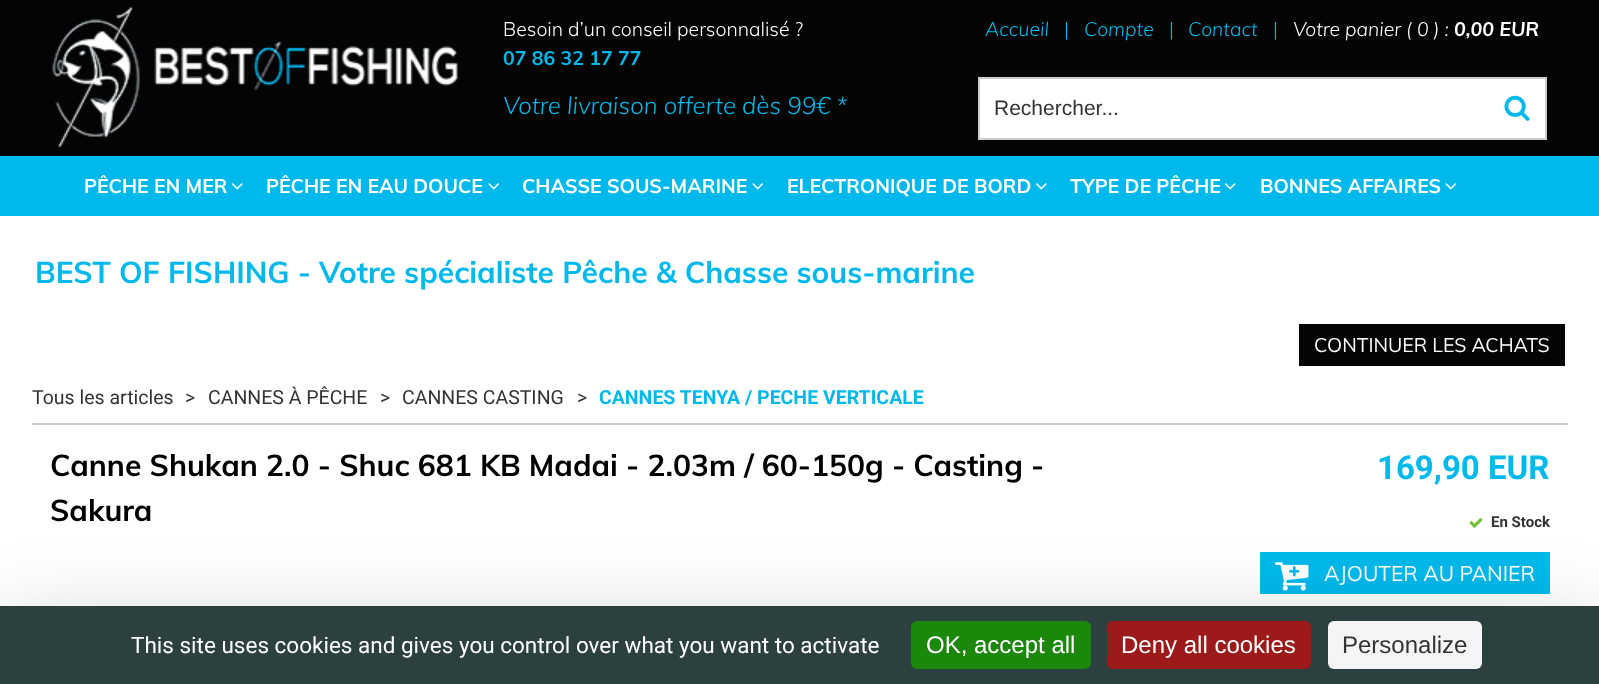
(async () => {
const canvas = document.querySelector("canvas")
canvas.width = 1599
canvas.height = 684
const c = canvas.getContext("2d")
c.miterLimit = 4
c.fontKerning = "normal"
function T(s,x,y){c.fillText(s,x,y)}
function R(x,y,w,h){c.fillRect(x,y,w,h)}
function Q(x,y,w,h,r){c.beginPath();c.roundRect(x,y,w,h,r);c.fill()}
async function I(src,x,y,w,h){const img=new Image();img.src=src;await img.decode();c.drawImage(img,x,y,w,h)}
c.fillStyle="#fff"
R(0,0,1599,684)
c.fillStyle="#00b9ec"
R(0,156,1599,60)
c.fillStyle="#040404"
R(0,0,1599,156)
await I("1.png",52,7,406,140)
c.font="300 19.5px Muli"
c.fillStyle="#fff"
T("Besoin d’un conseil personnalisé ?",503,36)
c.font="bold 19.5px Muli"
c.fillStyle="#00b9ec"
T("07 86 32 17 77",503,65)
c.font="italic 300 24px Muli"
T("Votre livraison offerte dès 99€ *",503,114)
c.font="italic 300 19.5px Muli"
T("Accueil",985,36)
c.font="300 19.5px Muli"
T("|",1064,36)
c.font="italic 300 19.5px Muli"
T("Compte",1084,36)
c.font="300 19.5px Muli"
T("|",1169,36)
c.font="italic 300 19.5px Muli"
T("Contact",1188,36)
c.font="300 19.5px Muli"
T("|",1273,36)
c.font="italic 300 19.5px Muli"
c.fillStyle="#fff"
T("Votre panier ( 0 ) :",1293,36)
c.font="italic bold 19.5px Muli"
T("0,00 EUR",1454,36)
c.beginPath()
c.rect(979,78,567,61)
c.fill()
c.strokeStyle="#ccc"
c.lineWidth=2
c.stroke()
c.font="21px Liberation Sans"
c.fillStyle="#333"
T("Rechercher...",994,115)
await I("2.png",1504,95,26,26)
c.font="bold 19.5px Muli"
c.fillStyle="#fff"
T("PÊCHE EN MER",84,193)
await I("3.png",231,183,12,7)
T("PÊCHE EN EAU DOUCE",266,193)
await I("4.png",488,183,12,7)
T("CHASSE SOUS-MARINE",522,193)
await I("4.png",752,183,12,7)
T("ELECTRONIQUE DE BORD",787,193)
await I("3.png",1035,183,12,7)
T("TYPE DE PÊCHE",1070,193)
await I("3.png",1224,183,12,7)
T("BONNES AFFAIRES",1260,193)
await I("4.png",1445,183,12,7)
c.font="bold 30px Muli"
c.fillStyle="#00b9ec"
T("BEST OF FISHING - Votre spécialiste Pêche & Chasse sous-marine",35,283)
c.fillStyle="#040404"
R(1299,324,266,42)
c.font="19.5px Muli"
c.fillStyle="#fff"
T("CONTINUER LES ACHATS",1314,352)
c.font="19.5px Roboto"
c.fillStyle="#333"
T("Tous les articles",32,404)
T(">",185,404)
T("CANNES À PÊCHE",208,404)
T(">",380,404)
T("CANNES CASTING",402,404)
T(">",577,404)
c.font="bold 19.5px Roboto"
c.fillStyle="#00b9ec"
T("CANNES TENYA / PECHE VERTICALE",599,404)
c.fillStyle="#ccc"
R(32,423,1536,2)
c.font="bold 30px Muli"
c.fillStyle="#000"
T("Canne Shukan 2.0 - Shuc 681 KB Madai - 2.03m / 60-150g - Casting -",50,476)
T("Sakura",50,521)
c.font="bold 33px Roboto"
c.fillStyle="#00b9ec"
T("169,90 EUR",1377,479)
await I("5.png",1469,518,14,10)
c.font="bold 15px Roboto"
c.fillStyle="#333"
T("En Stock",1491,527)
c.fillStyle="#00b9ec"
R(1260,552,290,42)
await I("6.png",1275,562,34,29)
c.font="21px Muli"
c.fillStyle="#fff"
T("AJOUTER AU PANIER",1324,581)
c.fillStyle="#00000040"
c.filter="blur(45px)"
c.beginPath()
c.rect(0,636,1599,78)
c.fill()
c.filter="none"
c.fillStyle="#2c4040"
R(0,606,1599,78)
c.font="22.5px Roboto"
c.fillStyle="#fff"
T("This site uses cookies and gives you control over what you want to activate",131,653)
c.fillStyle="#1b870b"
Q(911,621,180,48,6)
c.font="24px Liberation Sans"
c.fillStyle="#fff"
T("OK, accept all",926,653)
c.fillStyle="#9c1a1a"
Q(1107,621,204,48,6)
c.fillStyle="#fff"
T("Deny all cookies",1121,653)
c.fillStyle="#f5f5f5"
Q(1328,621,154,48,6)
c.fillStyle="#333"
T("Personalize",1342,653)
})()
